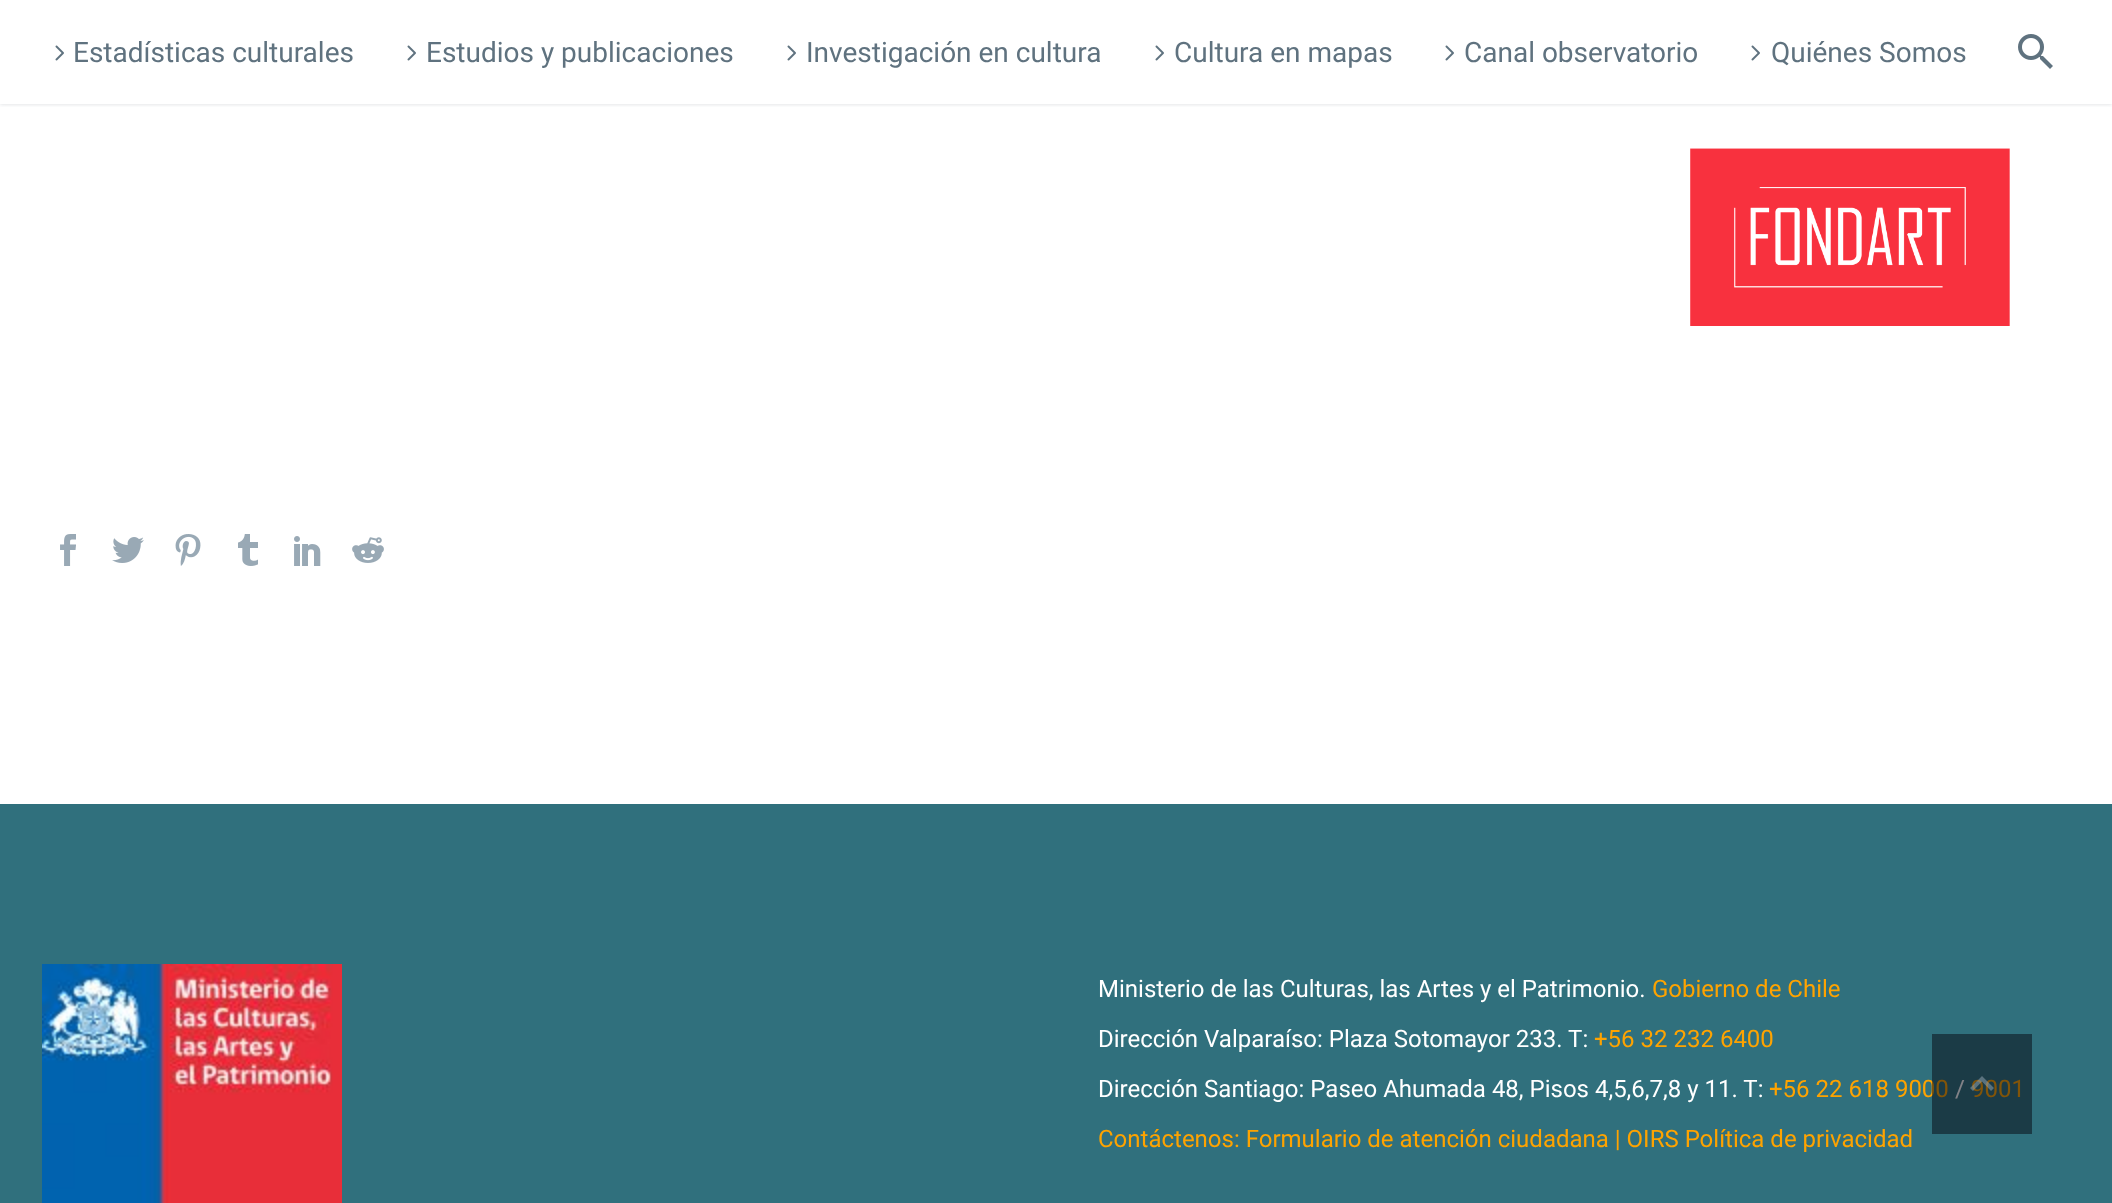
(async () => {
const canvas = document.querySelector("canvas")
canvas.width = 2112
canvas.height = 1203
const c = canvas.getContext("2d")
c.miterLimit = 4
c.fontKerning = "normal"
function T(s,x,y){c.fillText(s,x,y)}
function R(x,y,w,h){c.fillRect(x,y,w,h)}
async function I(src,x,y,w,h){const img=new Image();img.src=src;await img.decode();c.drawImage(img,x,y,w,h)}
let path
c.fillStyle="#30707d"
R(0,0,2112,1203)
c.fillStyle="#fff"
R(0,0,2112,804)
await I("1.png",1690,148,320,178)
await I("2.png",60,534,16,32)
await I("3.png",112,537,32,26)
await I("4.png",175,534,26,32)
await I("5.png",238,534,20,32)
await I("6.png",294,536,27,30)
await I("7.png",352,537,32,26)
c.save()
c.beginPath()
c.rect(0,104,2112,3)
c.clip()
c.fillStyle="#38455433"
c.filter="blur(2px)"
c.beginPath()
c.rect(0,0,2112,104)
c.fill()
c.filter="none"
c.restore()
await I("8.png",55,45,9,16)
c.font="28px Roboto"
c.fillStyle="#5f727f"
T("Estadísticas culturales",73,62)
await I("8.png",407,45,9,16)
T("Estudios y publicaciones",426,62)
await I("8.png",787,45,9,16)
T("Investigación en cultura",806,62)
await I("8.png",1155,45,9,16)
T("Cultura en mapas",1174,62)
await I("8.png",1445,45,9,16)
T("Canal observatorio",1464,62)
await I("8.png",1751,45,9,16)
T("Quiénes Somos",1771,62)
await I("9.png",2018,34,35,35)
await I("10.png",42,964,300,239)
c.font="24px Roboto"
c.fillStyle="#fff"
T("Ministerio de las Culturas, las Artes y el Patrimonio.",1098,997)
c.fillStyle="#fea300"
T("Gobierno de Chile",1652,997)
c.fillStyle="#fff"
T("Dirección Valparaíso: Plaza Sotomayor 233. T:",1098,1047)
c.fillStyle="#fea300"
T("+56 32 232 6400",1594,1047)
c.fillStyle="#fff"
T("Dirección Santiago: Paseo Ahumada 48, Pisos 4,5,6,7,8 y 11. T:",1098,1097)
c.fillStyle="#fea300"
T("+56 22 618 9000",1769,1097)
c.fillStyle="#fff"
T("/",1955,1097)
c.fillStyle="#fea300"
T("9001",1971,1097)
T("Contáctenos: Formulario de atención ciudadana | OIRS Política de privacidad",1098,1147)
c.fillStyle="#06060f80"
R(1932,1034,100,100)
c.fillStyle="#99a9b580"
path = new Path2D("M1973 1091l9-9.5l9 9.5l3-3l-12-12l-12 12z")
c.fill(path)
})()
